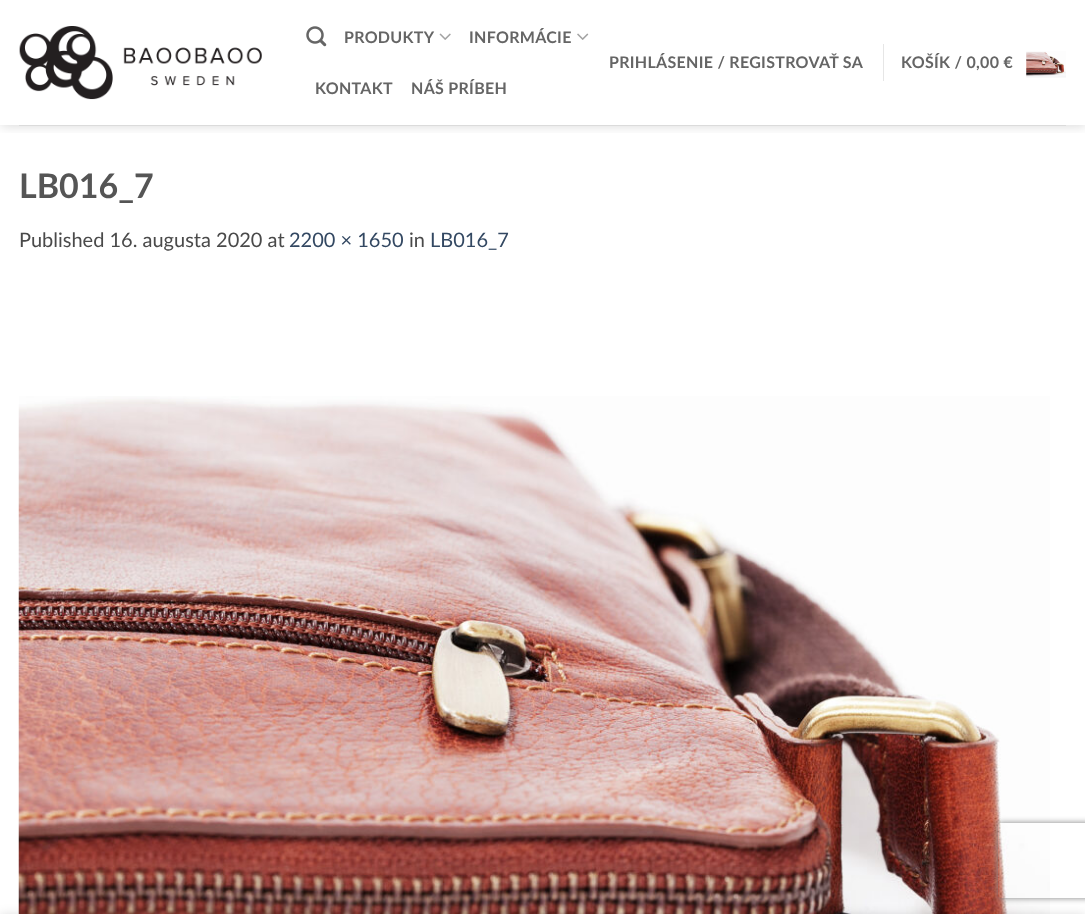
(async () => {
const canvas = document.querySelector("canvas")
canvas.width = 1085
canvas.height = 914
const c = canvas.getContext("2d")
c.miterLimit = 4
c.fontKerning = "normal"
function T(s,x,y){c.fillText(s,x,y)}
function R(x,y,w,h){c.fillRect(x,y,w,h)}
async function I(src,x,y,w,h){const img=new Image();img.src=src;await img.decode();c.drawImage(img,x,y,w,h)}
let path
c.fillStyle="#fff"
R(0,0,1085,914)
c.save()
c.beginPath()
c.rect(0,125,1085,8)
c.clip()
c.fillStyle="#00000026"
c.filter="blur(6px)"
c.beginPath()
c.rect(1,1,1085,125)
c.fill()
c.filter="none"
c.restore()
await I("1.png",19,26,243,74)
await I("2.png",306,26,21,21)
c.letterSpacing="0.3px"
c.font="bold 16px Lato"
c.fillStyle="#656565"
T("PRODUKTY",344,43)
await I("3.png",439,33,12,7)
T("INFORMÁCIE",469,43)
await I("4.png",577,33,12,7)
T("KONTAKT",315,94)
T("NÁŠ PRÍBEH",411,94)
T("PRIHLÁSENIE / REGISTROVAŤ SA",609,68)
c.fillStyle="#e6e6e6"
R(883,44,1,37)
c.fillStyle="#656565"
T("KOŠÍK / 0,00 €",901,68)
await I("5.png",1026,51,40,27)
c.fillStyle="#dbdbdb"
R(19,125,1047,1)
c.letterSpacing="0px"
c.font="bold 34px Lato"
c.fillStyle="#555"
T("LB016_7",19,198)
c.font="20px Lato"
c.fillStyle="#4a4a4a"
T("Published 16. augusta 2020 at",19,247)
c.fillStyle="#334862"
T("2200 × 1650",289,247)
c.fillStyle="#4a4a4a"
T("in",409,247)
c.fillStyle="#334862"
T("LB016_7",430,247)
await I("6.png",18,396,1032,518)
c.save()
path = new Path2D("M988 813h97v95h-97zm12.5 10h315c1.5 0 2.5 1 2.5 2.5v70c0 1.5-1 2.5-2.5 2.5h-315c-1.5 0-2.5-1-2.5-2.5v-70c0-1.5 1-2.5 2.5-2.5z")
c.clip(path,"evenodd")
c.fillStyle="#808080"
c.filter="blur(3px)"
c.beginPath()
c.roundRect(998,823,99,75,2.5)
c.fill()
c.filter="none"
c.restore()
c.fillStyle="#00000024"
c.filter="blur(5.5px)"
c.beginPath()
c.rect(0,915,1085,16)
c.fill()
c.filter="none"
})()
